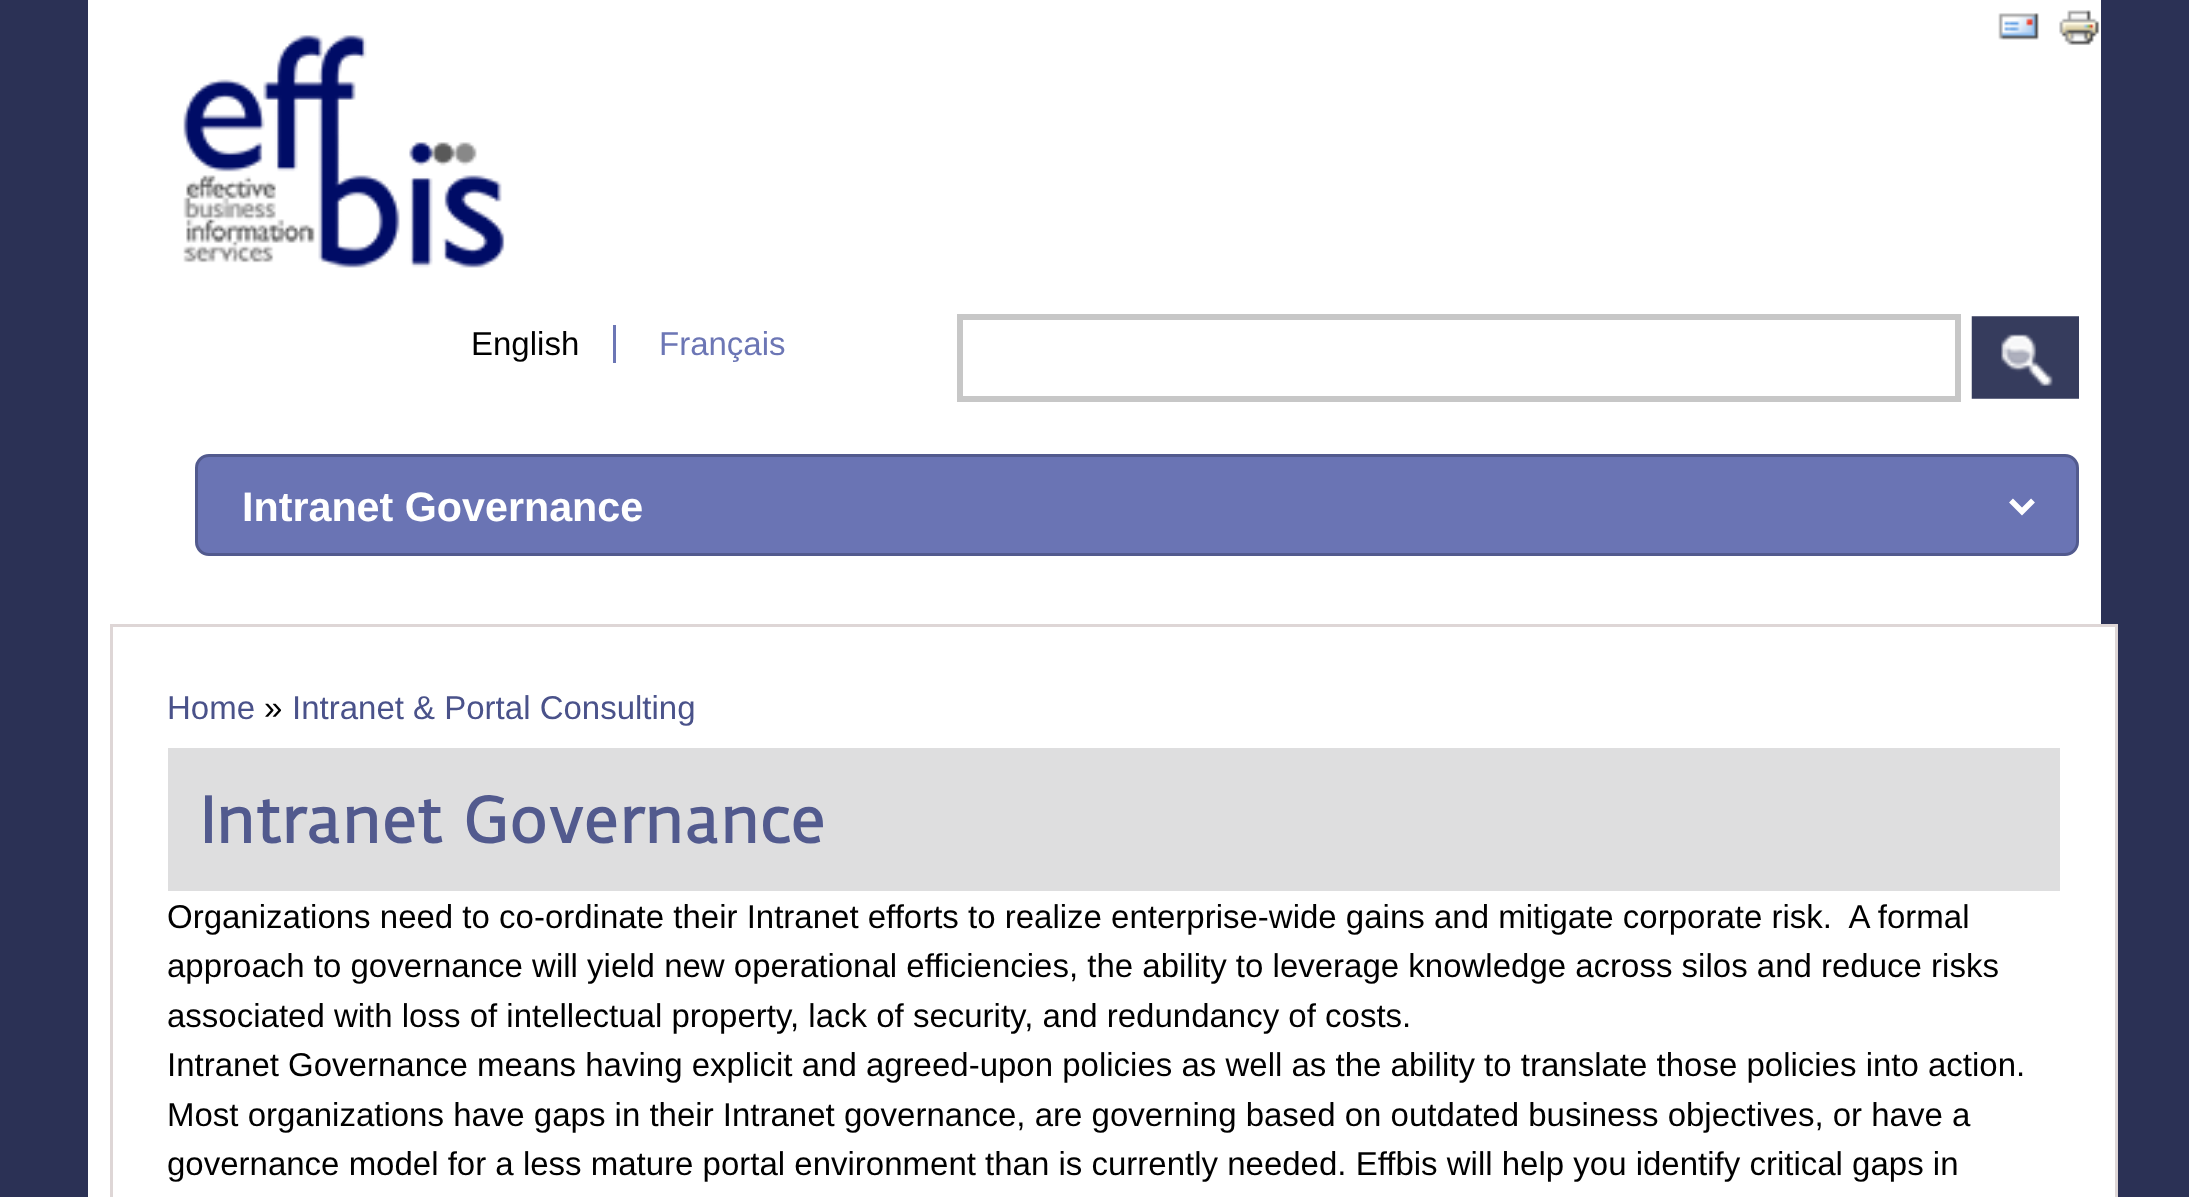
(async () => {
const canvas = document.querySelector("canvas")
canvas.width = 2189
canvas.height = 1197
const c = canvas.getContext("2d")
c.miterLimit = 4
c.fontKerning = "normal"
function T(s,x,y){c.fillText(s,x,y)}
function R(x,y,w,h){c.fillRect(x,y,w,h)}
async function I(src,x,y,w,h){const img=new Image();img.src=src;await img.decode();c.drawImage(img,x,y,w,h)}
let path
c.fillStyle="#2b3155"
R(0,0,2189,1197)
c.fillStyle="#fff"
R(88,0,2013,1197)
await I("1.png",183,35,322,233)
c.fillStyle="#6c76b5"
R(613,325,3,38)
c.font="33px Liberation Sans"
c.fillStyle="#000"
T("English",471,355)
c.fillStyle="#6c76b5"
T("Français",659,355)
c.strokeStyle="#c7c7c7"
c.lineWidth=6
c.strokeRect(960,317,998,82)
await I("2.png",1971,316,108,83)
c.fillStyle="#6a74b4"
c.beginPath()
c.roundRect(196.5,455.5,1881,99,12.5)
c.fill()
c.strokeStyle="#525a8e"
c.lineWidth=3
c.stroke()
path = new Path2D("M2011 500.5l11 11l11-11")
c.strokeStyle="#fff"
c.lineWidth=5.5
c.stroke(path)
c.font="bold 41.25px Liberation Sans"
c.fillStyle="#fff"
T("Intranet Governance",242,521)
R(2101,627,14,570)
c.strokeStyle="#ded6d6"
c.lineWidth=3
c.strokeRect(111.5,625.5,2005,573)
c.font="33px Liberation Sans"
c.fillStyle="#4a528a"
T("Home",167,719)
c.fillStyle="#000"
T("»",264,719)
c.fillStyle="#4a528a"
T("Intranet & Portal Consulting",292,719)
c.fillStyle="#dededf"
R(168,748,1892,143)
c.font="bold 60.5px Duru Sans"
c.fillStyle="#525a8e"
T("Intranet Governance",200,843)
await I("3.png",1998,13,41,27)
await I("4.png",2059,10,41,35)
c.font="33px Liberation Sans"
c.fillStyle="#000"
T("Organizations need to co-ordinate their Intranet efforts to realize enterprise-wide gains and mitigate corporate risk.  A formal",167,928)
T("approach to governance will yield new operational efficiencies, the ability to leverage knowledge across silos and reduce risks",167,977)
T("associated with loss of intellectual property, lack of security, and redundancy of costs.",167,1027)
T("Intranet Governance means having explicit and agreed-upon policies as well as the ability to translate those policies into action.",167,1076)
T("Most organizations have gaps in their Intranet governance, are governing based on outdated business objectives, or have a",167,1126)
T("governance model for a less mature portal environment than is currently needed. Effbis will help you identify critical gaps in",167,1175)
})()
